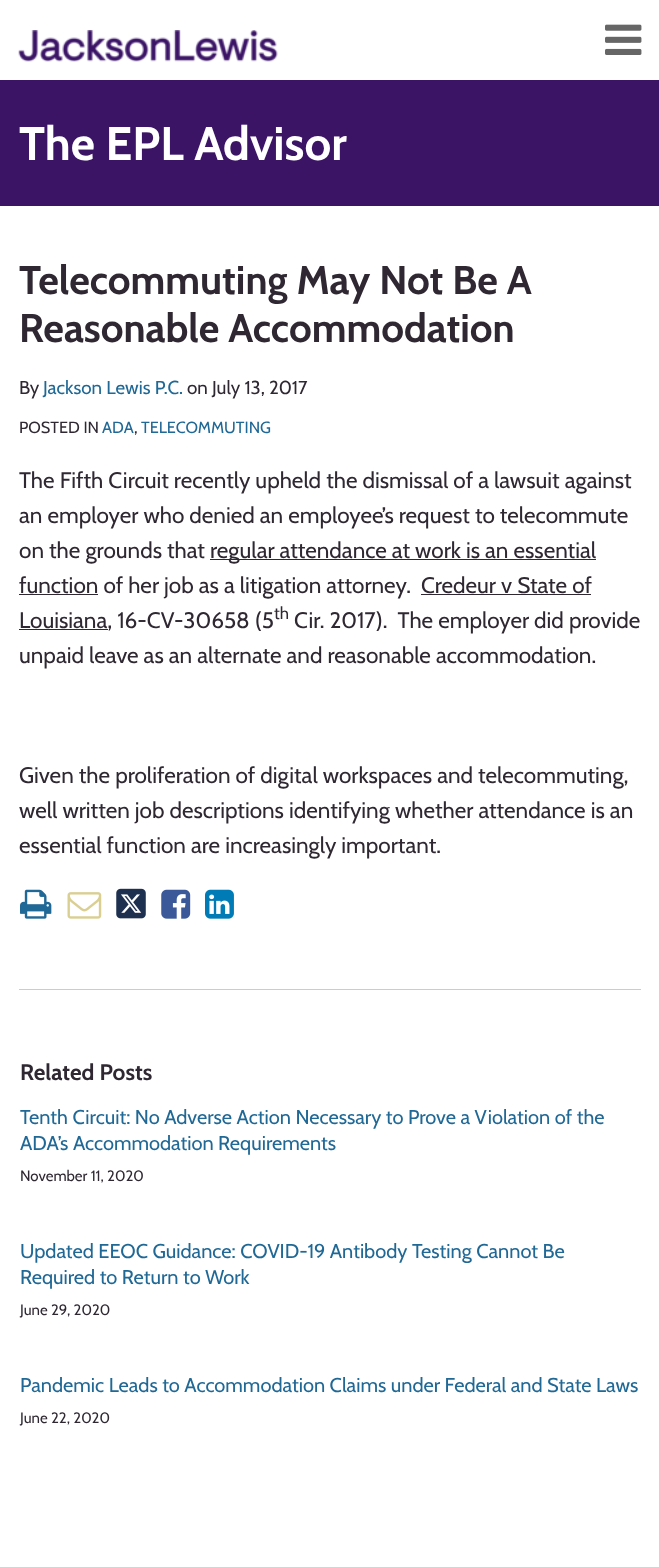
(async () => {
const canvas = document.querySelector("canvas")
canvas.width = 659
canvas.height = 1567
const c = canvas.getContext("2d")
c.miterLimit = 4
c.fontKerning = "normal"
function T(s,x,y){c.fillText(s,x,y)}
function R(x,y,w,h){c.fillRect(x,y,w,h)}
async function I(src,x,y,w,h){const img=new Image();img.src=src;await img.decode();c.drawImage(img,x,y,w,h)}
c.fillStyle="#fff"
R(0,0,659,1567)
c.fillStyle="#3b1466"
R(0,80,659,126)
await I("1.png",18,30,260,32)
await I("2.png",605,24,37,31)
c.font="bold 47px Cabin"
c.fillStyle="#fff"
T("The EPL Advisor",19,160)
c.font="bold 40px Cabin"
c.fillStyle="#2f2833"
T("Telecommuting May Not Be A",19,294)
T("Reasonable Accommodation",19,342)
c.font="18.75px Cabin"
T("By",19,394)
c.fillStyle="#206895"
T("Jackson Lewis P.C.",43,394)
c.fillStyle="#2f2833"
T("on July 13, 2017",187,394)
c.font="16.25px Cabin"
T("POSTED IN",19,433)
c.fillStyle="#206895"
T("ADA",102,433)
c.fillStyle="#2f2833"
T(",",134,433)
c.fillStyle="#206895"
T("TELECOMMUTING",141,433)
c.font="22.5px Cabin"
c.fillStyle="#2f2833"
T("The Fifth Circuit recently upheld the dismissal of a lawsuit against",19,488)
T("an employer who denied an employee’s request to telecommute",19,523)
T("on the grounds that",19,558)
R(210,559,386,1)
T("regular attendance at work is an essential",210,558)
R(19,594,79,1)
T("function of her job as a litigation attorney.",19,593)
T("Credeur v State of",421,593)
R(421,594,170,1)
R(19,629,89,1)
T("Louisiana, 16-CV-30658 (5",19,628)
c.font="17px Cabin"
T("th",274,619)
c.font="22.5px Cabin"
T("Cir. 2017).  The employer did provide",294,628)
T("unpaid leave as an alternate and reasonable accommodation.",19,663)
T("Given the proliferation of digital workspaces and telecommuting,",19,783)
T("well written job descriptions identifying whether attendance is an",19,818)
T("essential function are increasingly important.",19,853)
c.fillStyle="#ccc"
R(19,989,622,1)
await I("3.png",20,889,32,30)
await I("4.png",67,892,35,27)
await I("5.png",116,888,30,31)
await I("6.png",161,889,30,30)
await I("7.png",205,889,29,30)
c.font="bold 22.5px Cabin"
c.fillStyle="#2f2833"
T("Related Posts",20,1080)
c.font="20px Cabin"
c.fillStyle="#206895"
T("Tenth Circuit: No Adverse Action Necessary to Prove a Violation of the",20,1124)
T("ADA’s Accommodation Requirements",20,1150)
c.font="15px Cabin"
c.fillStyle="#2f2833"
T("November 11, 2020",20,1181)
c.font="20px Cabin"
c.fillStyle="#206895"
T("Updated EEOC Guidance: COVID-19 Antibody Testing Cannot Be",20,1258)
T("Required to Return to Work",20,1284)
c.font="15px Cabin"
c.fillStyle="#2f2833"
T("June 29, 2020",20,1315)
c.font="20px Cabin"
c.fillStyle="#206895"
T("Pandemic Leads to Accommodation Claims under Federal and State Laws",20,1392)
c.font="15px Cabin"
c.fillStyle="#2f2833"
T("June 22, 2020",20,1423)
})()
